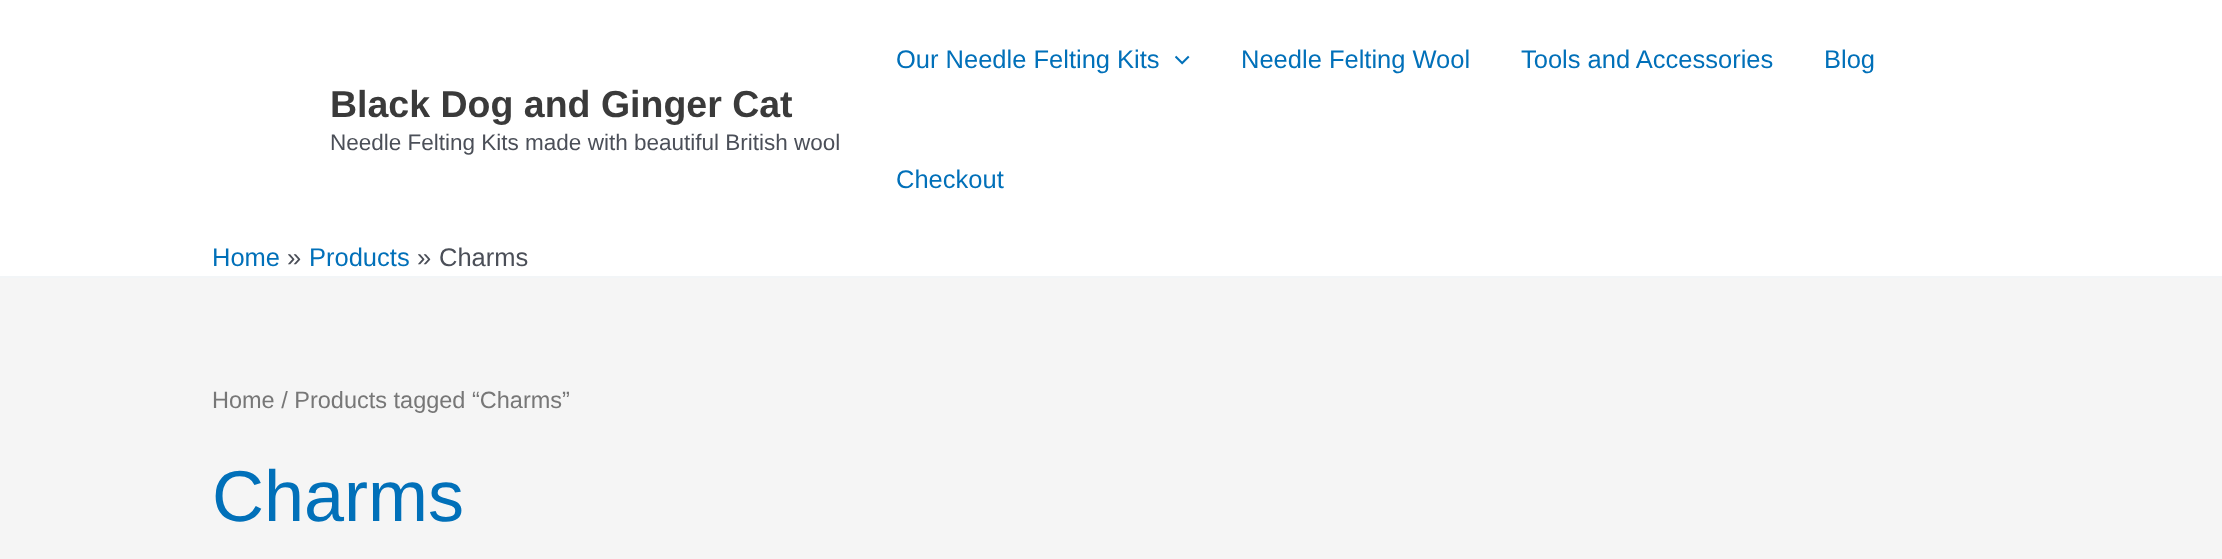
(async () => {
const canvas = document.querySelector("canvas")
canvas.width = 2222
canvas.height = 559
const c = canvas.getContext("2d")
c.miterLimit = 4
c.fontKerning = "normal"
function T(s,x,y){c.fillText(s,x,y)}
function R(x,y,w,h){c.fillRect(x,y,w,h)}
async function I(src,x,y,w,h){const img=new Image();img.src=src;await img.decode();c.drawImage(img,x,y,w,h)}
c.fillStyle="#f5f5f5"
R(0,0,2222,559)
c.fillStyle="#fff"
R(0,0,2222,276)
c.fillStyle="#f2f5f7"
R(0,276,2222,2)
c.font="bold 37.5px Liberation Sans"
c.fillStyle="#3a3a3a"
T("Black Dog and Ginger Cat",330,117)
c.font="22.5px Liberation Sans"
c.fillStyle="#4b4f58"
T("Needle Felting Kits made with beautiful British wool",330,150)
c.font="25.5px Liberation Sans"
c.fillStyle="#0170b9"
T("Our Needle Felting Kits",896,68)
await I("1.png",1175,55,15,10)
T("Needle Felting Wool",1241,68)
T("Tools and Accessories",1521,68)
T("Blog",1824,68)
T("Checkout",896,188)
T("Home",212,266)
c.fillStyle="#4b4f58"
T("»",287,266)
c.fillStyle="#0170b9"
T("Products",309,266)
c.fillStyle="#4b4f58"
T("»",417,266)
T("Charms",439,266)
c.font="23.5px Liberation Sans"
c.fillStyle="#777"
T("Home / Products tagged “Charms”",212,408)
c.font="72px Liberation Sans"
c.fillStyle="#0170b9"
T("Charms",212,521)
})()
